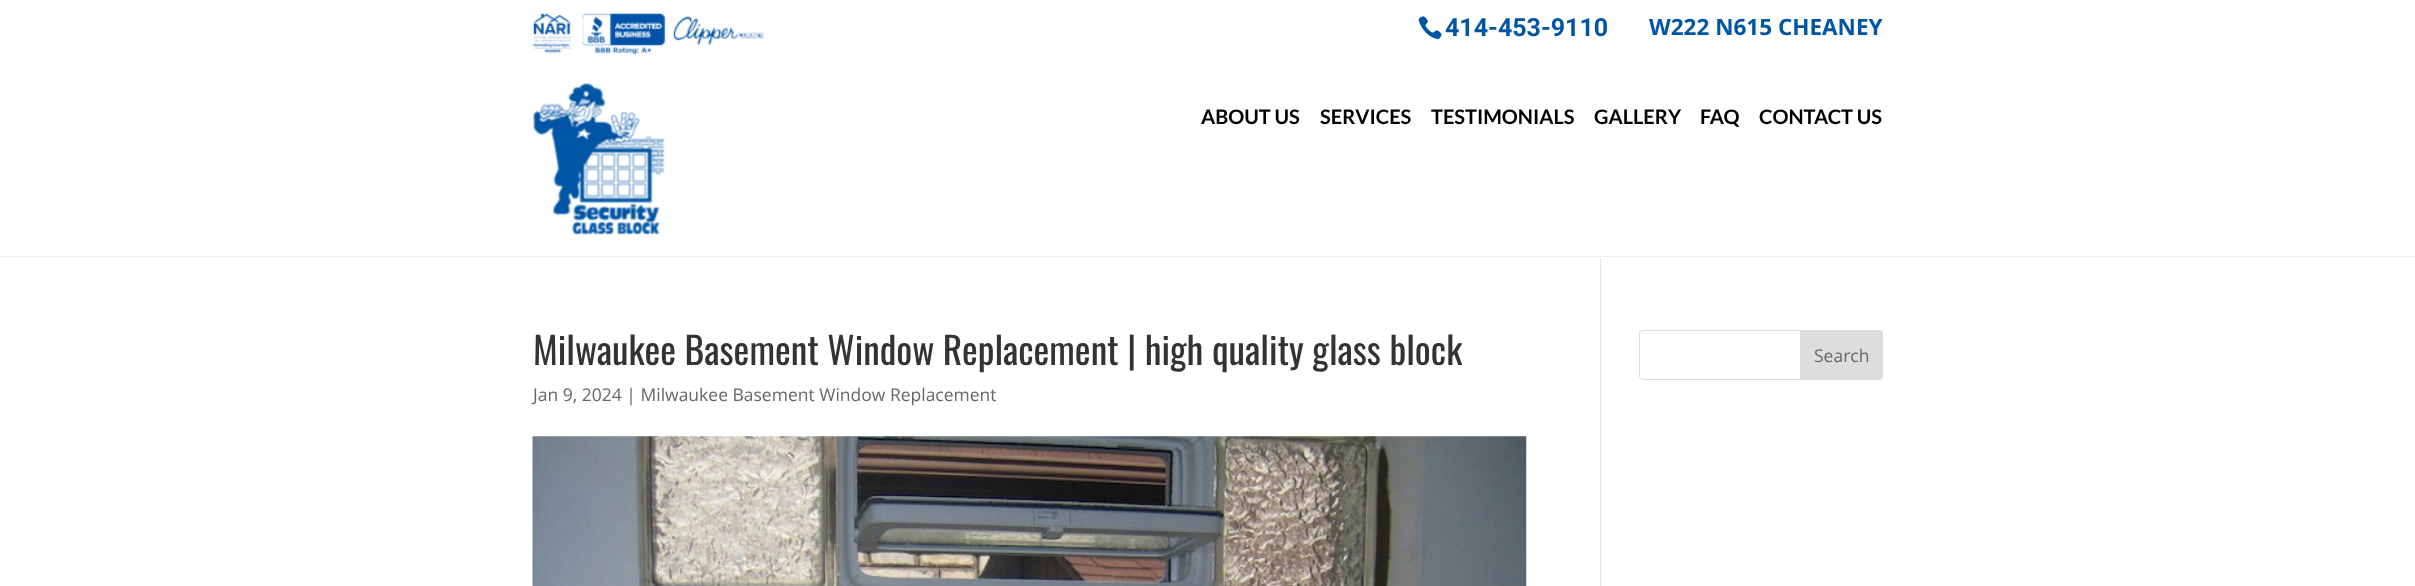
(async () => {
const canvas = document.querySelector("canvas")
canvas.width = 2415
canvas.height = 586
const c = canvas.getContext("2d")
c.miterLimit = 4
c.fontKerning = "normal"
function T(s,x,y){c.fillText(s,x,y)}
function R(x,y,w,h){c.fillRect(x,y,w,h)}
async function I(src,x,y,w,h){const img=new Image();img.src=src;await img.decode();c.drawImage(img,x,y,w,h)}
c.fillStyle="#fff"
R(0,0,2415,586)
await I("1.png",533,13,231,41)
await I("2.png",1418,16,24,24)
c.font="bold 25px Roboto"
c.fillStyle="#0055a5"
T("414-453-9110",1445,36)
c.font="bold 22.5px Open Sans"
T("W222 N615 CHEANEY",1649,35)
c.fillStyle="#eee"
R(0,256,2415,1)
await I("3.png",533,83,132,152)
c.font="bold 20px Lato"
c.fillStyle="#000"
T("ABOUT US",1201,124)
T("SERVICES",1320,124)
T("TESTIMONIALS",1431,124)
T("GALLERY",1594,124)
T("FAQ",1700,124)
T("CONTACT US",1759,124)
c.fillStyle="#e2e2e2"
R(1600,258,1,328)
c.font="37.5px Oswald"
c.fillStyle="#333"
T("Milwaukee Basement Window Replacement | high quality glass block",533,365)
c.font="17.5px Open Sans"
c.fillStyle="#666"
T("Jan 9, 2024 | Milwaukee Basement Window Replacement",533,401)
await I("4.png",532,436,995,150)
c.beginPath()
c.roundRect(1639.5,330.5,243,49,3.5)
c.strokeStyle="#ddd"
c.stroke()
c.fillStyle="#ddd"
c.beginPath()
c.roundRect(1800.5,330.5,82,49,[0,3.5,3.5,0])
c.fill()
c.stroke()
c.fillStyle="#666"
T("Search",1814,362)
})()
